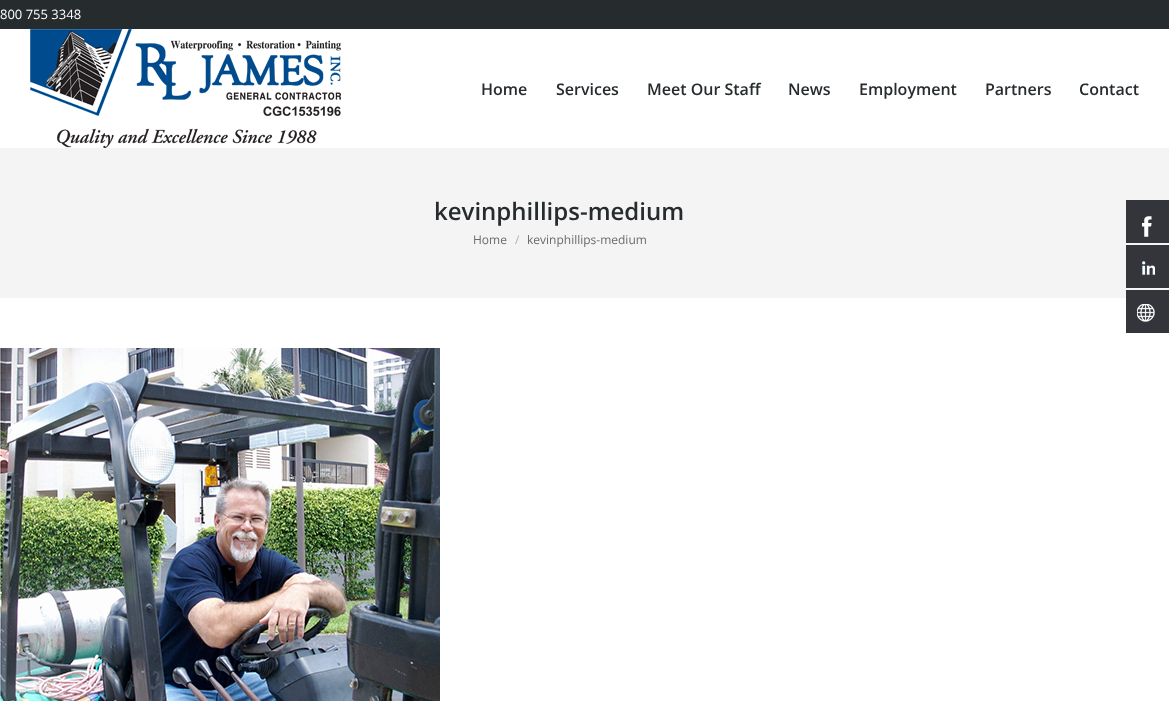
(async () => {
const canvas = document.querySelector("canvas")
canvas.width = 1169
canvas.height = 701
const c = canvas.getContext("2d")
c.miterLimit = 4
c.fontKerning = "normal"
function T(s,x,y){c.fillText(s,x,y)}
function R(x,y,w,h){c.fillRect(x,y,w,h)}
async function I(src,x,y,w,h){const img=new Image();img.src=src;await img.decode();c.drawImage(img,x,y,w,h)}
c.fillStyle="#fff"
R(0,0,1169,701)
c.fillStyle="#262b2e"
R(0,0,1169,29)
c.font="13px Open Sans"
c.fillStyle="#fff"
T("800 755 3348",0,19)
await I("1.png",30,29,311,119)
c.font="600 16px Open Sans"
c.fillStyle="#262b2e"
T("Home",481,95)
T("Services",556,95)
T("Meet Our Staff",647,95)
T("News",788,95)
T("Employment",859,95)
T("Partners",985,95)
T("Contact",1079,95)
c.fillStyle="#f4f4f4"
R(0,148,1169,150)
c.font="600 24px Open Sans"
c.fillStyle="#262b2e"
T("kevinphillips-medium",434,220)
c.font="12px Open Sans"
c.fillStyle="#676b6d"
T("Home",473,244)
c.fillStyle="#aeb0b1"
T("/",515,244)
c.fillStyle="#676b6d"
T("kevinphillips-medium",527,244)
await I("2.png",0,348,440,353)
c.fillStyle="#33353b"
R(1126,200,43,43)
await I("3.png",1142,216,10,21)
R(1126,245,43,43)
await I("4.png",1142,261,13,14)
R(1126,290,43,43)
await I("5.png",1137,304,18,18)
})()
